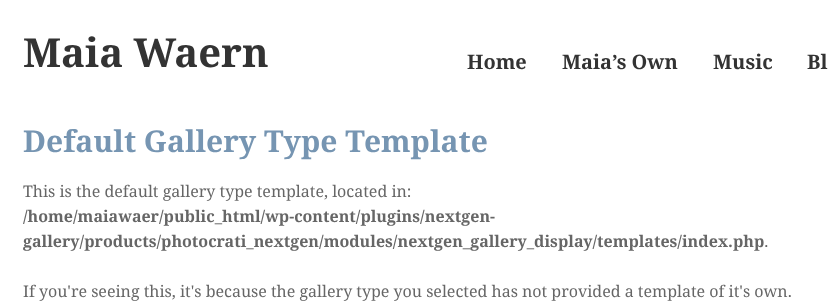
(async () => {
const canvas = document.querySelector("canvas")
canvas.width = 832
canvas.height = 305
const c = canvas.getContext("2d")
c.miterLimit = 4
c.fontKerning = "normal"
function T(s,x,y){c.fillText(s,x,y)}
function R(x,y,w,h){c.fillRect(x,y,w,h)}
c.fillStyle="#fff"
R(0,0,832,305)
c.font="bold 40px Droid Serif"
c.fillStyle="#333"
T("Maia Waern",23,67)
c.font="bold 20px Droid Serif"
T("Home",467,69)
T("Maia’s Own",562,69)
T("Music",713,69)
T("Bl",807,69)
c.font="bold 30px Droid Serif"
c.fillStyle="#7695b2"
T("Default Gallery Type Template",23,152)
c.font="16px Droid Serif"
c.fillStyle="#666"
T("This is the default gallery type template, located in:",23,197)
c.font="bold 16px Droid Serif"
T("/home/maiawaer/public_html/wp-content/plugins/nextgen-",23,222)
T("gallery/products/photocrati_nextgen/modules/nextgen_gallery_display/templates/index.php",23,247)
c.font="16px Droid Serif"
T(".",764,247)
T("If you're seeing this, it's because the gallery type you selected has not provided a template of it's own.",23,297)
})()
